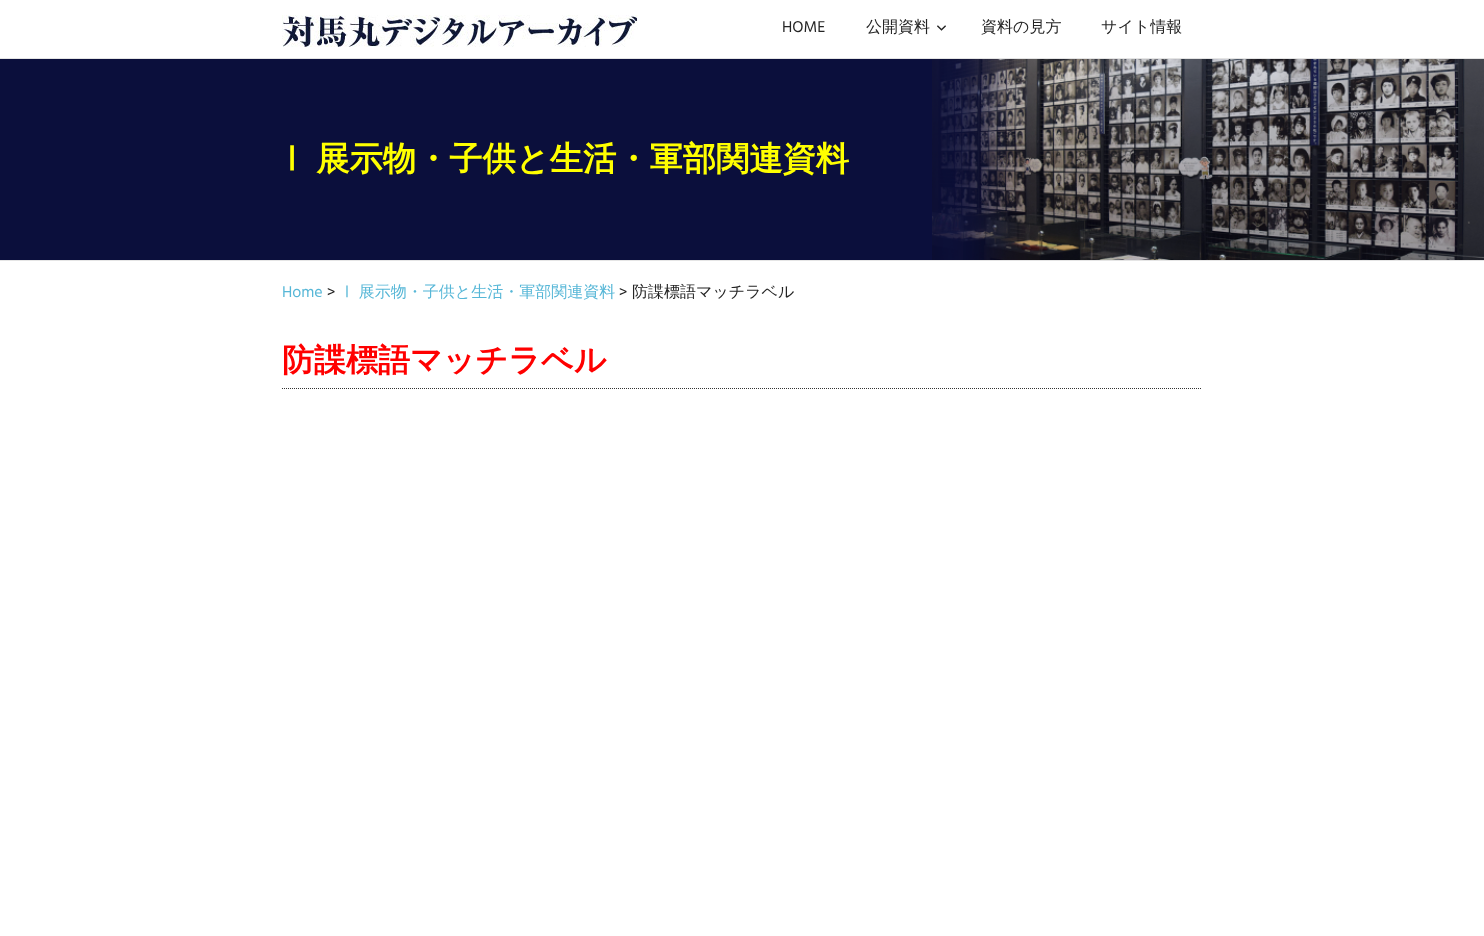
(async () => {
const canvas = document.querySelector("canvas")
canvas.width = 1484
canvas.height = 936
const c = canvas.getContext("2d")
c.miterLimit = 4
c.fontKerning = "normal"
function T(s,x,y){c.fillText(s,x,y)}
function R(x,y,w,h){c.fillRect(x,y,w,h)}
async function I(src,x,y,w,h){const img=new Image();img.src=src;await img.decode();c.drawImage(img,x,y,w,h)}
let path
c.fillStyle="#fff"
R(0,0,1484,936)
c.fillStyle="#e4e4e4"
R(0,58,1484,1)
await I("1.png",282,15,356,32)
c.font="16px Hind"
c.fillStyle="#242424"
T("HOME",782,32)
c.font="500 16px WenQuanYi Zen Hei"
T("公開資料",866,32)
await I("2.png",937,25,9,6)
T("資料の見方",981,32)
T("サイト情報",1101,32)
c.fillStyle="#0b0f3c"
R(0,59,1484,201)
await I("3.png",932,59,552,201)
c.fillStyle="#e5e5e5"
R(0,260,1484,1)
c.wordSpacing="-2px"
c.font="bold 33.25px WenQuanYi Zen Hei"
c.fillStyle="#ff0"
T("Ⅰ 展示物・子供と生活・軍部関連資料",275,170)
c.wordSpacing="0px"
c.font="16px Hind"
c.fillStyle="#57b7d7"
T("Home",282,297)
c.fillStyle="#242424"
T(">",327,297)
c.wordSpacing="-1px"
c.font="500 16px WenQuanYi Zen Hei"
c.fillStyle="#57b7d7"
T("Ⅰ 展示物・子供と生活・軍部関連資料",339,297)
c.wordSpacing="0px"
c.font="16px Hind"
c.fillStyle="#242424"
T(">",619,297)
c.font="500 16px WenQuanYi Zen Hei"
T("防諜標語マッチラベル",632,297)
path = new Path2D("M282 388.5h920")
c.strokeStyle="#333"
c.setLineDash([1,1])
c.stroke(path)
c.font="bold 32px WenQuanYi Zen Hei"
c.fillStyle="#f00"
T("防諜標語マッチラベル",282,371)
})()
